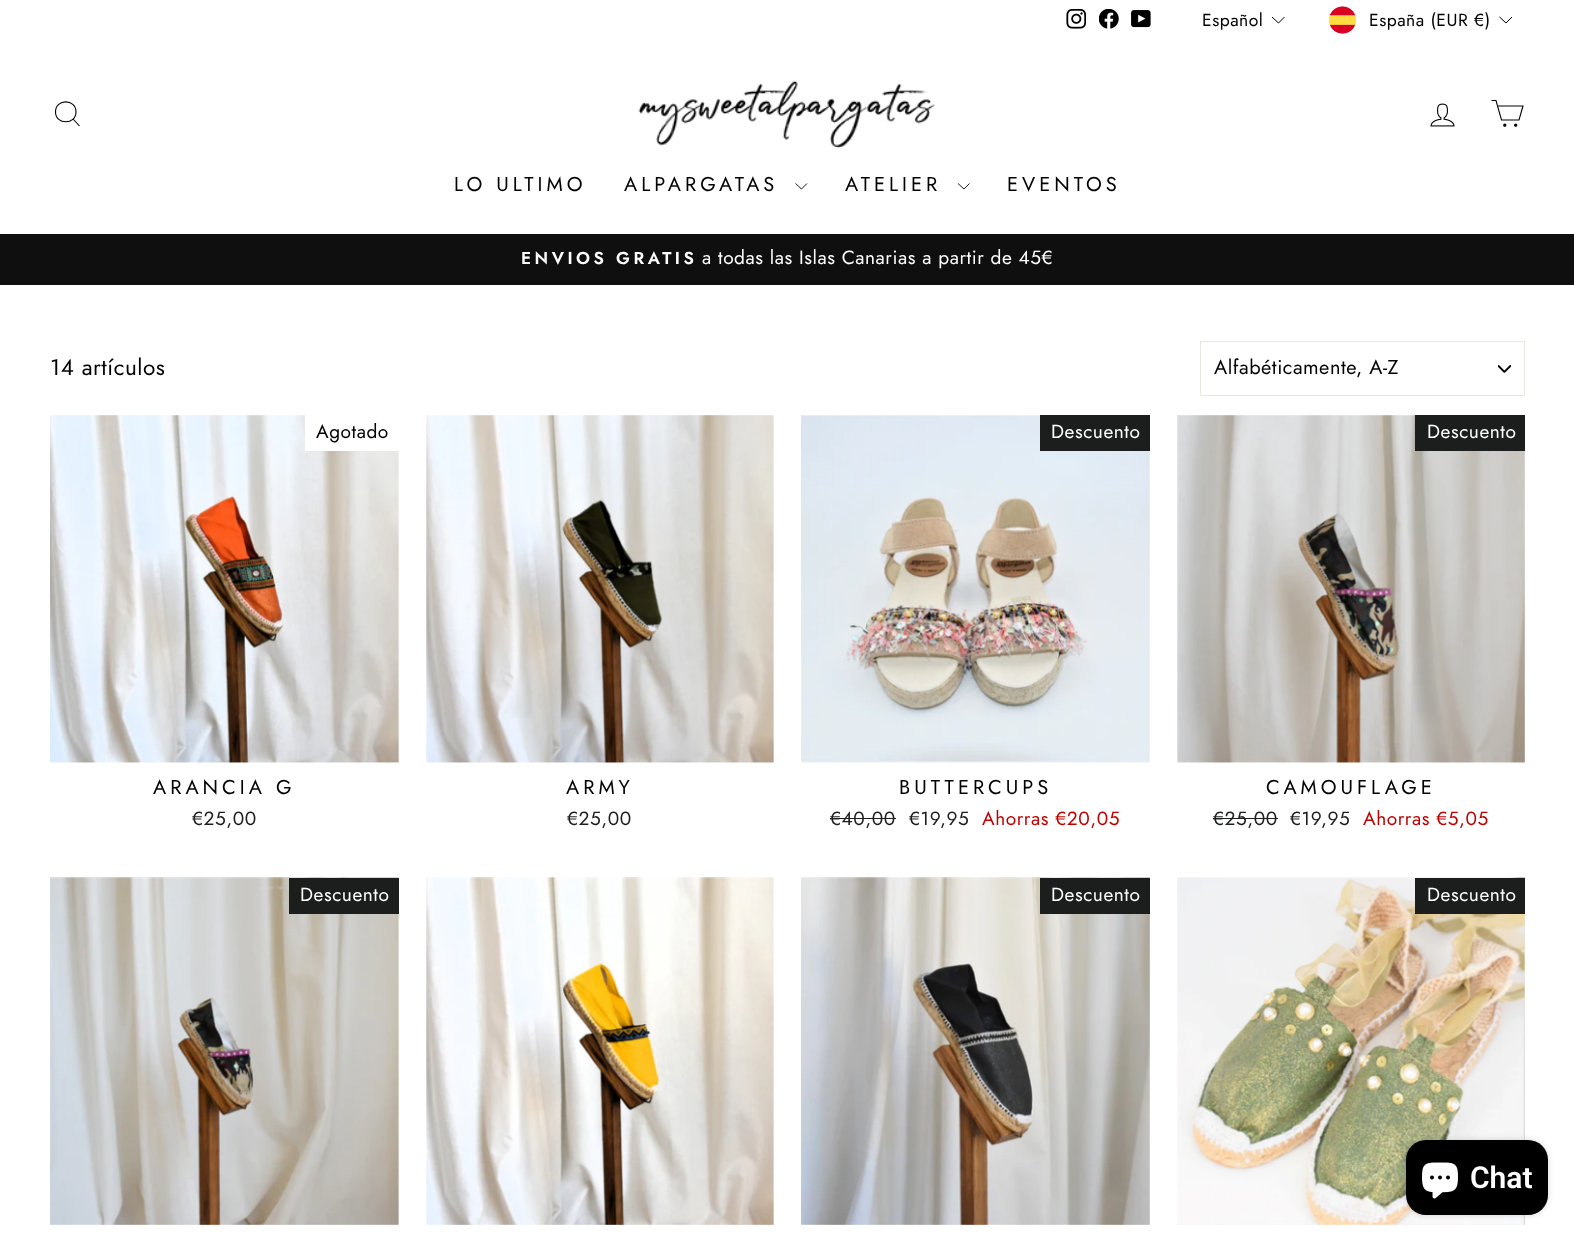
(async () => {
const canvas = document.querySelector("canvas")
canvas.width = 1574
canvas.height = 1241
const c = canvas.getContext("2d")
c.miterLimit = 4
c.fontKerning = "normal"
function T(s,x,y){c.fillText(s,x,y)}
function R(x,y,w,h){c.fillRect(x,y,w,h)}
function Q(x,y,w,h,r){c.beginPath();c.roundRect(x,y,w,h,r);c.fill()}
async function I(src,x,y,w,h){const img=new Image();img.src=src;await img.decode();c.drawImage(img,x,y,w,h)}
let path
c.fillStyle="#fff"
R(0,0,1574,1241)
await I("1.png",1066,9,20,20)
await I("2.png",1099,9,20,20)
await I("3.png",1131,10,20,18)
c.letterSpacing="0.5px"
c.font="17.5px Jost"
c.fillStyle="#000"
T("Español",1202,26)
path = new Path2D("M1272 17l6.5 6l6-6")
c.strokeStyle="#000"
c.stroke(path)
await I("4.png",1328,6,29,28)
T("España (EUR €)",1369,26)
path = new Path2D("M1499.5 17l6.5 6l6-6")
c.stroke(path)
c.fillStyle="#0f0f0f"
R(0,234,1574,51)
c.fillStyle="#00000033"
c.filter="blur(0.5px)"
c.beginPath()
c.rect(0,40,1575,194)
c.fill()
c.filter="none"
c.fillStyle="#fff"
R(0,40,1574,194)
path = new Path2D("M76 112c0 13-20.5 13-20.5 0c0-13.5 20.5-13.5 20.5 0zm3.5 14l-6.5-7")
c.lineWidth=1.1
c.stroke(path)
await I("5.png",638,80,297,69)
await I("6.png",1430,103,25,24)
path = new Path2D("M1497.5 106h25.5l-4 14h-17.5l-5.5-19.5h-4.5")
c.stroke(path)
c.fillStyle="#000"
c.beginPath()
c.arc(1504.8,125.2,1.1,0,7)
c.fill()
c.stroke()
c.beginPath()
c.arc(1515.7,125.2,1.1,0,7)
c.fill()
c.stroke()
c.letterSpacing="4px"
c.font="20px Jost"
T("LO ULTIMO",454,191)
T("ALPARGATAS",624,191)
path = new Path2D("M795.5 183.5l6 5.5l5.5-5.5")
c.lineWidth=0.9
c.stroke(path)
T("ATELIER",845,191)
path = new Path2D("M958 183.5l6 5.5l5.5-5.5")
c.stroke(path)
T("EVENTOS",1007,191)
c.letterSpacing="3.5px"
c.font="600 17.25px Jost"
c.fillStyle="#fff"
T("ENVIOS GRATIS",521,264)
c.letterSpacing="0.55px"
c.font="19.1px Jost"
T("a todas las Islas Canarias a partir de 45€",702,264)
c.font="22.5px Jost"
c.fillStyle="#000"
T("14 artículos",50,375)
await I("7.png",1498,365,13,8)
c.strokeStyle="#e8e8e1"
c.lineWidth=1
c.strokeRect(1200.5,341.5,324,54)
c.letterSpacing="0.5px"
c.font="20px Jost"
T("Alfabéticamente, A-Z",1214,374)
await I("8.png",50,415,349,348)
c.fillStyle="#fff"
R(305,415,94,36)
c.letterSpacing="0.55px"
c.font="19.1px Jost"
c.fillStyle="#000"
T("Agotado",316,438)
c.letterSpacing="4px"
c.font="20px Jost"
T("ARANCIA G",153,794)
c.letterSpacing="0.55px"
c.font="19.1px Jost"
c.fillStyle="#1c1d1d"
T("€25,00",192,825)
await I("9.png",426,415,348,348)
c.letterSpacing="4px"
c.font="20px Jost"
c.fillStyle="#000"
T("ARMY",566,794)
c.letterSpacing="0.55px"
c.font="19.1px Jost"
c.fillStyle="#1c1d1d"
T("€25,00",567,825)
await I("10.png",801,415,349,348)
R(1040,415,110,36)
c.fillStyle="#fff"
T("Descuento",1051,438)
c.letterSpacing="4px"
c.font="20px Jost"
c.fillStyle="#000"
T("BUTTERCUPS",899,794)
c.letterSpacing="0.55px"
c.font="19.1px Jost"
c.fillStyle="#1c1d1d"
T("€40,00",830,825)
R(830,818,66,1)
T("€19,95",909,825)
c.fillStyle="#c20000"
T("Ahorras €20,05",982,825)
await I("11.png",1177,415,348,348)
c.fillStyle="#1c1d1d"
R(1415,415,110,36)
c.fillStyle="#fff"
T("Descuento",1427,438)
c.letterSpacing="4px"
c.font="20px Jost"
c.fillStyle="#000"
T("CAMOUFLAGE",1266,794)
c.letterSpacing="0.55px"
c.font="19.1px Jost"
c.fillStyle="#1c1d1d"
T("€25,00",1213,825)
R(1213,818,65,1)
T("€19,95",1290,825)
c.fillStyle="#c20000"
T("Ahorras €5,05",1363,825)
await I("12.png",50,877,349,348)
c.fillStyle="#1c1d1d"
R(289,878,110,36)
c.fillStyle="#fff"
T("Descuento",300,901)
await I("13.png",426,877,348,348)
await I("14.png",801,877,349,348)
c.fillStyle="#1c1d1d"
R(1040,878,110,36)
c.fillStyle="#fff"
T("Descuento",1051,901)
await I("15.png",1177,877,348,348)
c.fillStyle="#1c1d1d"
R(1415,878,110,36)
c.fillStyle="#fff"
T("Descuento",1427,901)
c.fillStyle="#00000026"
c.filter="blur(3px)"
c.beginPath()
c.roundRect(1406,1140,142,75,20)
c.fill()
c.filter="none"
c.fillStyle="#000"
Q(1406,1140,142,75,20)
await I("16.png",1422,1162,36,37)
c.letterSpacing="0px"
c.font="600 30px Roboto"
c.fillStyle="#fff"
T("Chat",1470,1188)
})()
